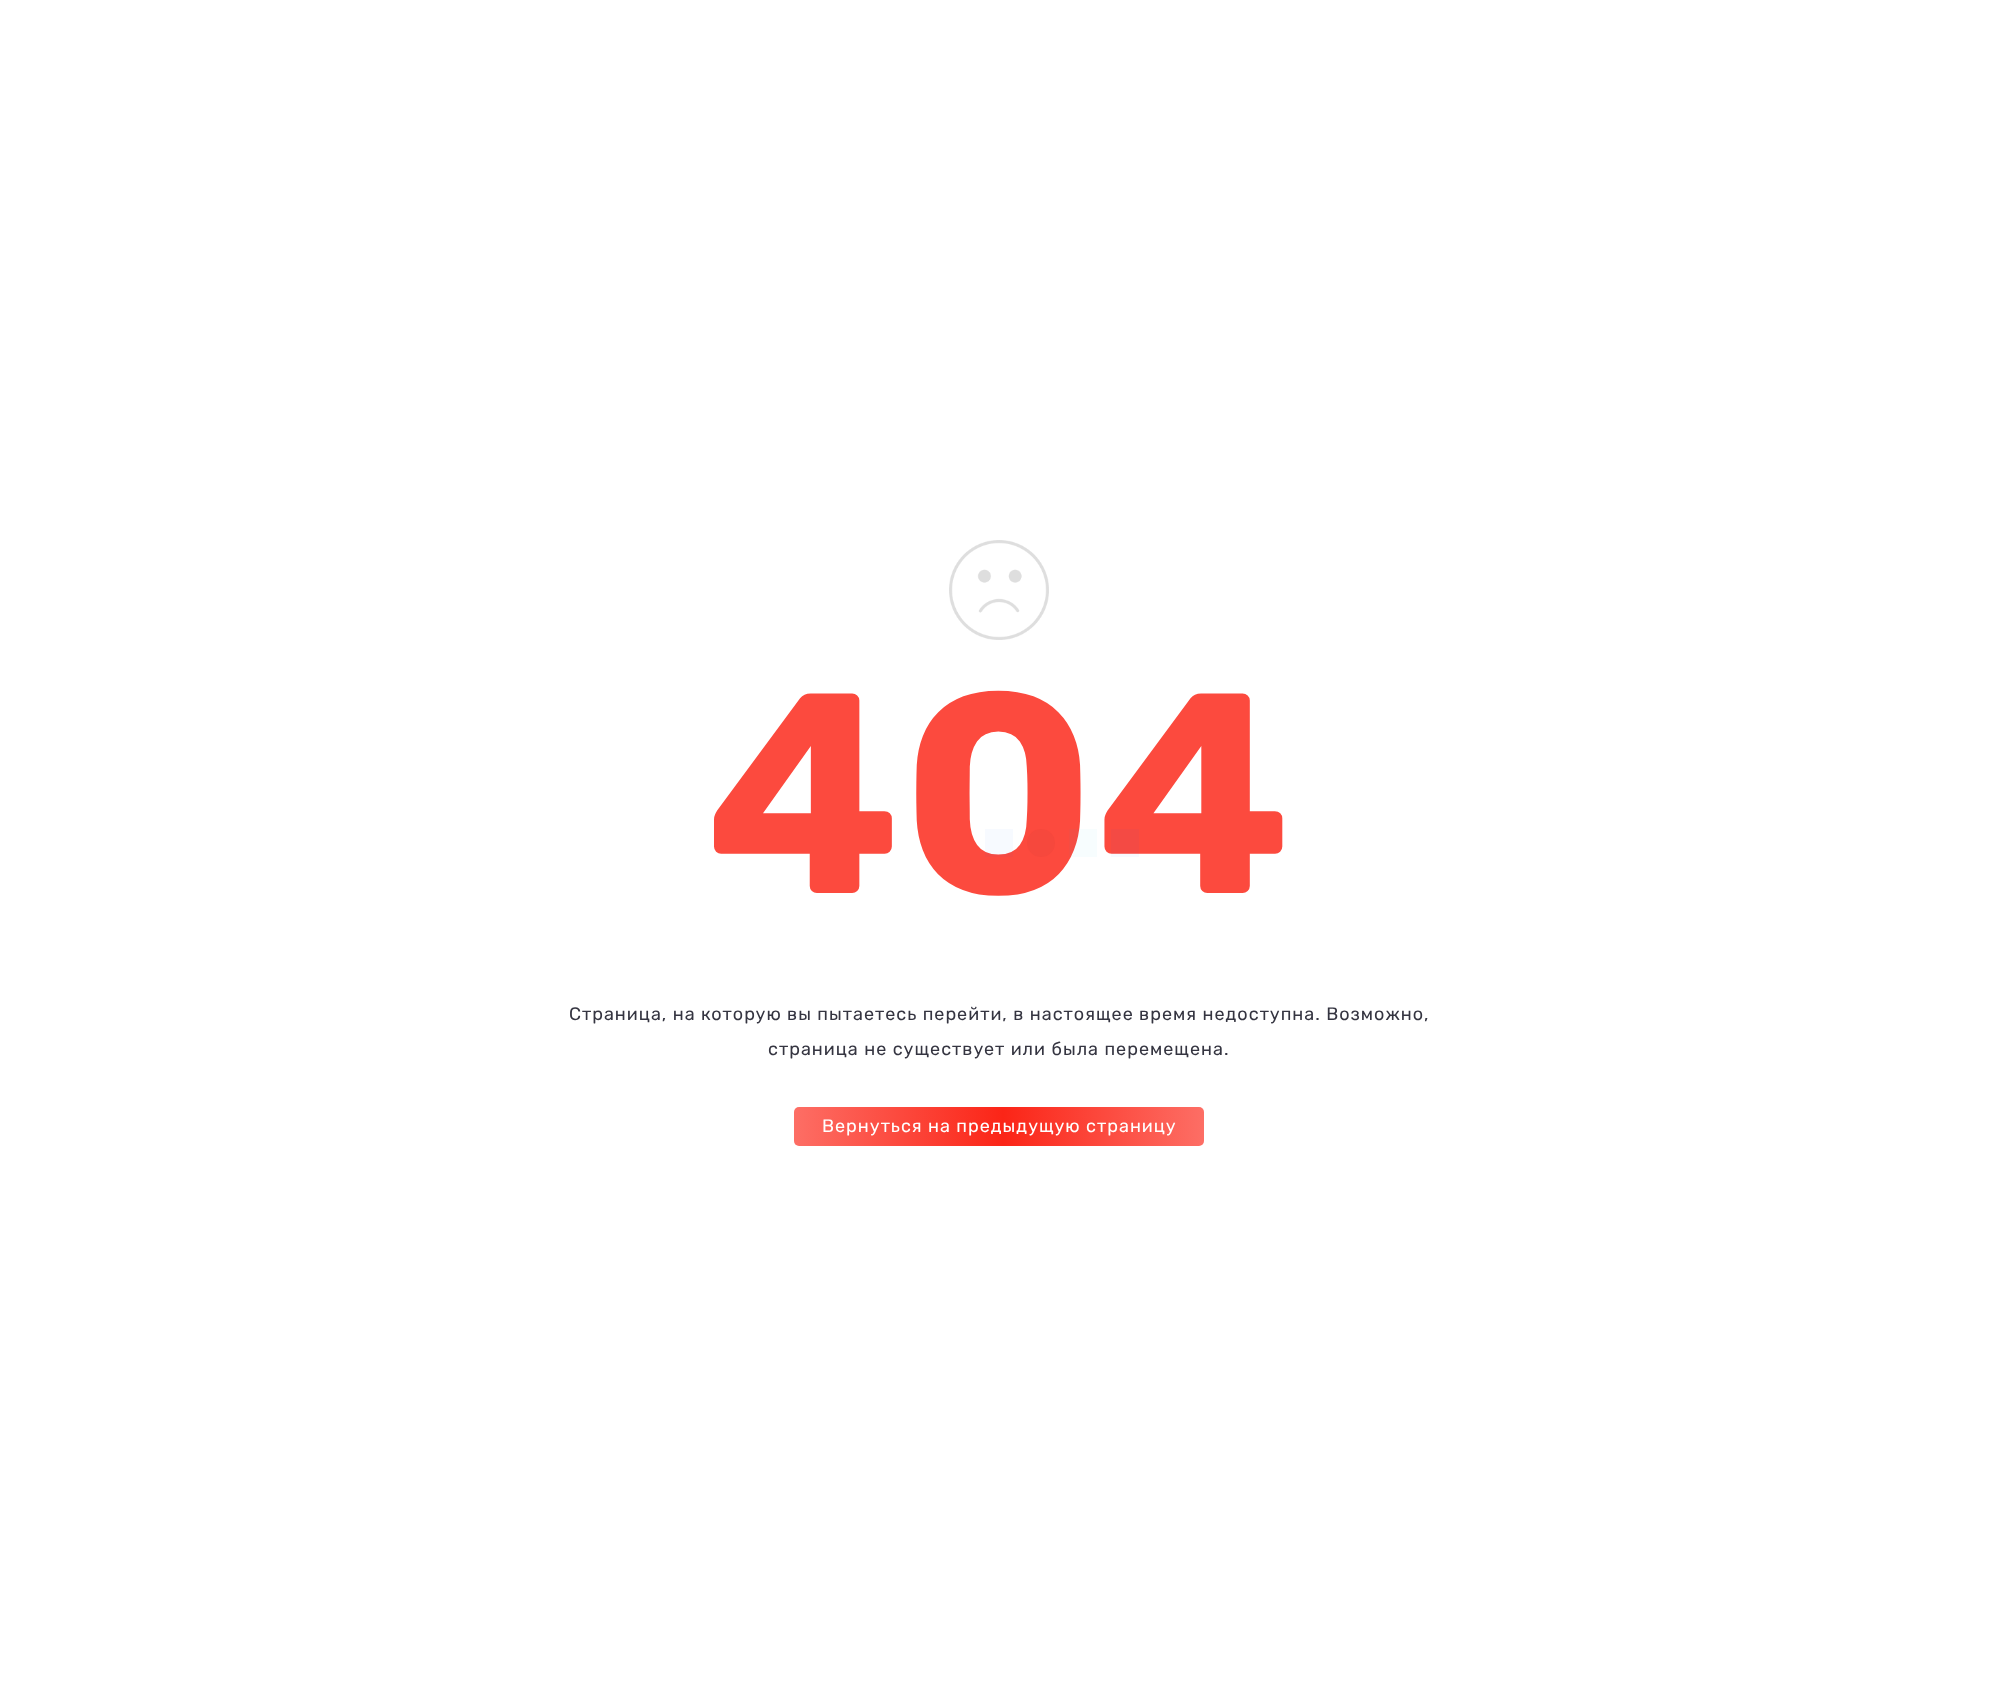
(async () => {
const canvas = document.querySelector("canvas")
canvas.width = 1998
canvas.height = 1686
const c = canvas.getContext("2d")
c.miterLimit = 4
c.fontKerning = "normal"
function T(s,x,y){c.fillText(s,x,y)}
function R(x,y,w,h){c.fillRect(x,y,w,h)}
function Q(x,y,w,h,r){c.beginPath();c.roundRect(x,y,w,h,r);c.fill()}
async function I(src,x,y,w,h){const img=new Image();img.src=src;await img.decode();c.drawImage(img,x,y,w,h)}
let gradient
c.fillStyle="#fff"
R(0,0,1998,1686)
await I("1.png",949,540,100,100)
c.letterSpacing="1px"
c.font="bold 285px Rubik"
c.fillStyle="#fc4a3e"
T("404",706,893)
c.font="18px Rubik"
c.fillStyle="#353541"
T("Страница, на которую вы пытаетесь перейти, в настоящее время недоступна. Возможно,",569,1020)
T("страница не существует или была перемещена.",768,1055)
gradient = c.createLinearGradient(794,1146,1204,1146)
gradient.addColorStop(0,"#fd6e65")
gradient.addColorStop(.51,"#fb2517")
gradient.addColorStop(1,"#fd6e65")
c.fillStyle = gradient
Q(794,1107,410,39,5)
c.fillStyle="#fff"
T("Вернуться на предыдущую страницу",822,1132)
c.fillStyle="#0053ff08"
R(985,829,28,28)
c.fillStyle="#0cc1ee08"
R(1069,829,28,28)
c.fillStyle="#f6483d"
c.beginPath()
c.arc(1041,843,14,0,7)
c.fill()
c.fillStyle="#0053ff08"
R(1111,829,28,28)
})()
